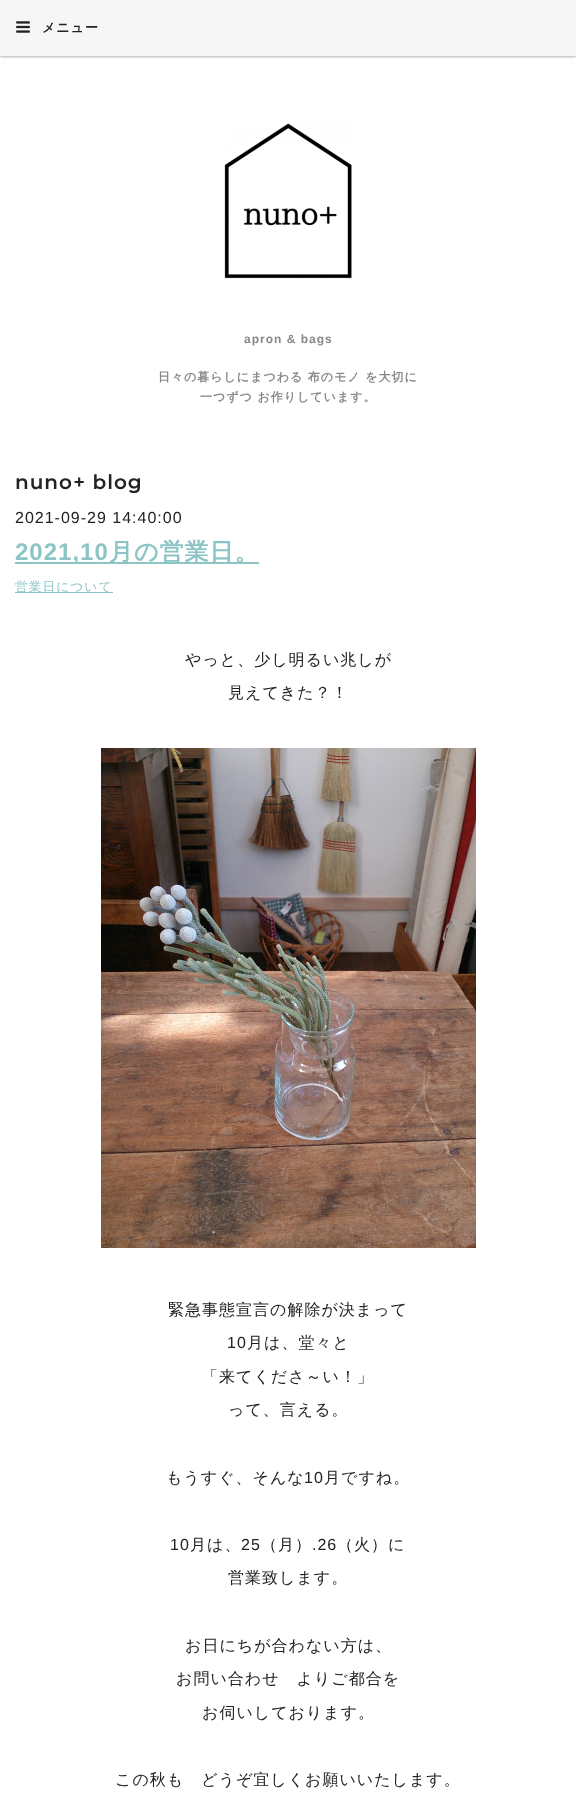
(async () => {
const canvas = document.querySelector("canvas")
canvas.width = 576
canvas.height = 1795
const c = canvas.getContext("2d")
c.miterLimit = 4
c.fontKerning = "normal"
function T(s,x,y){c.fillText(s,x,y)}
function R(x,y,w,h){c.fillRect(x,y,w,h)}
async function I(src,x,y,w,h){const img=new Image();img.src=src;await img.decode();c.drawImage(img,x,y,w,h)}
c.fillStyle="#fff"
R(0,0,576,1795)
c.fillStyle="#0000004d"
c.filter="blur(1px)"
c.beginPath()
c.rect(0,1,576,56)
c.fill()
c.filter="none"
c.fillStyle="#f6f6f6"
R(0,0,576,56)
await I("1.png",16,21,14,12)
c.letterSpacing="1px"
c.font="bold 13px WenQuanYi Zen Hei"
c.fillStyle="#222"
T("メニュー",42,32)
await I("2.png",224,123,128,156)
c.font="bold 12px Liberation Sans"
c.fillStyle="#888"
T("apron & bags",244,343)
c.font="bold 12px WenQuanYi Zen Hei"
T("日々の暮らしにまつわる 布のモノ を大切に",158,381)
T("一つずつ お作りしています。",200,401)
c.font="600 20px Montserrat"
c.fillStyle="#222"
T("nuno+ blog",15,489)
c.font="16px Liberation Sans"
T("2021-09-29 14:40:00",15,523)
c.fillStyle="#8dc5c6"
R(15,562,244,2)
c.font="bold 24px Liberation Sans"
T("2021,10",15,560)
c.font="bold 24px WenQuanYi Zen Hei"
T("月の営業日。",109,560)
R(15,592,98,1)
c.font="500 12.75px WenQuanYi Zen Hei"
T("営業日について",15,591)
c.font="500 16px WenQuanYi Zen Hei"
c.fillStyle="#222"
T("やっと、少し明るい兆しが",185,665)
T("見えてきた？！",228,698)
await I("3.png",101,748,375,500)
T("緊急事態宣言の解除が決まって",168,1315)
c.font="16px Liberation Sans"
T("10",227,1348)
c.font="500 16px WenQuanYi Zen Hei"
T("月は、堂々と",247,1348)
T("「来てくださ～い！」",202,1382)
T("って、言える。",228,1415)
T("もうすぐ、そんな",166,1483)
c.font="16px Liberation Sans"
T("10",304,1483)
c.font="500 16px WenQuanYi Zen Hei"
T("月ですね。",324,1483)
c.font="16px Liberation Sans"
T("10",170,1550)
c.font="500 16px WenQuanYi Zen Hei"
T("月は、",190,1550)
c.font="16px Liberation Sans"
T("25",241,1550)
c.font="500 16px WenQuanYi Zen Hei"
T("（月）",261,1550)
c.font="16px Liberation Sans"
T(".26",312,1550)
c.font="500 16px WenQuanYi Zen Hei"
T("（火）に",337,1550)
T("営業致します。",228,1583)
T("お日にちが合わない方は、",185,1651)
T("お問い合わせ　よりご都合を",176,1684)
T("お伺いしております。",202,1718)
T("この秋も　どうぞ宜しくお願いいたします。",115,1785)
})()
